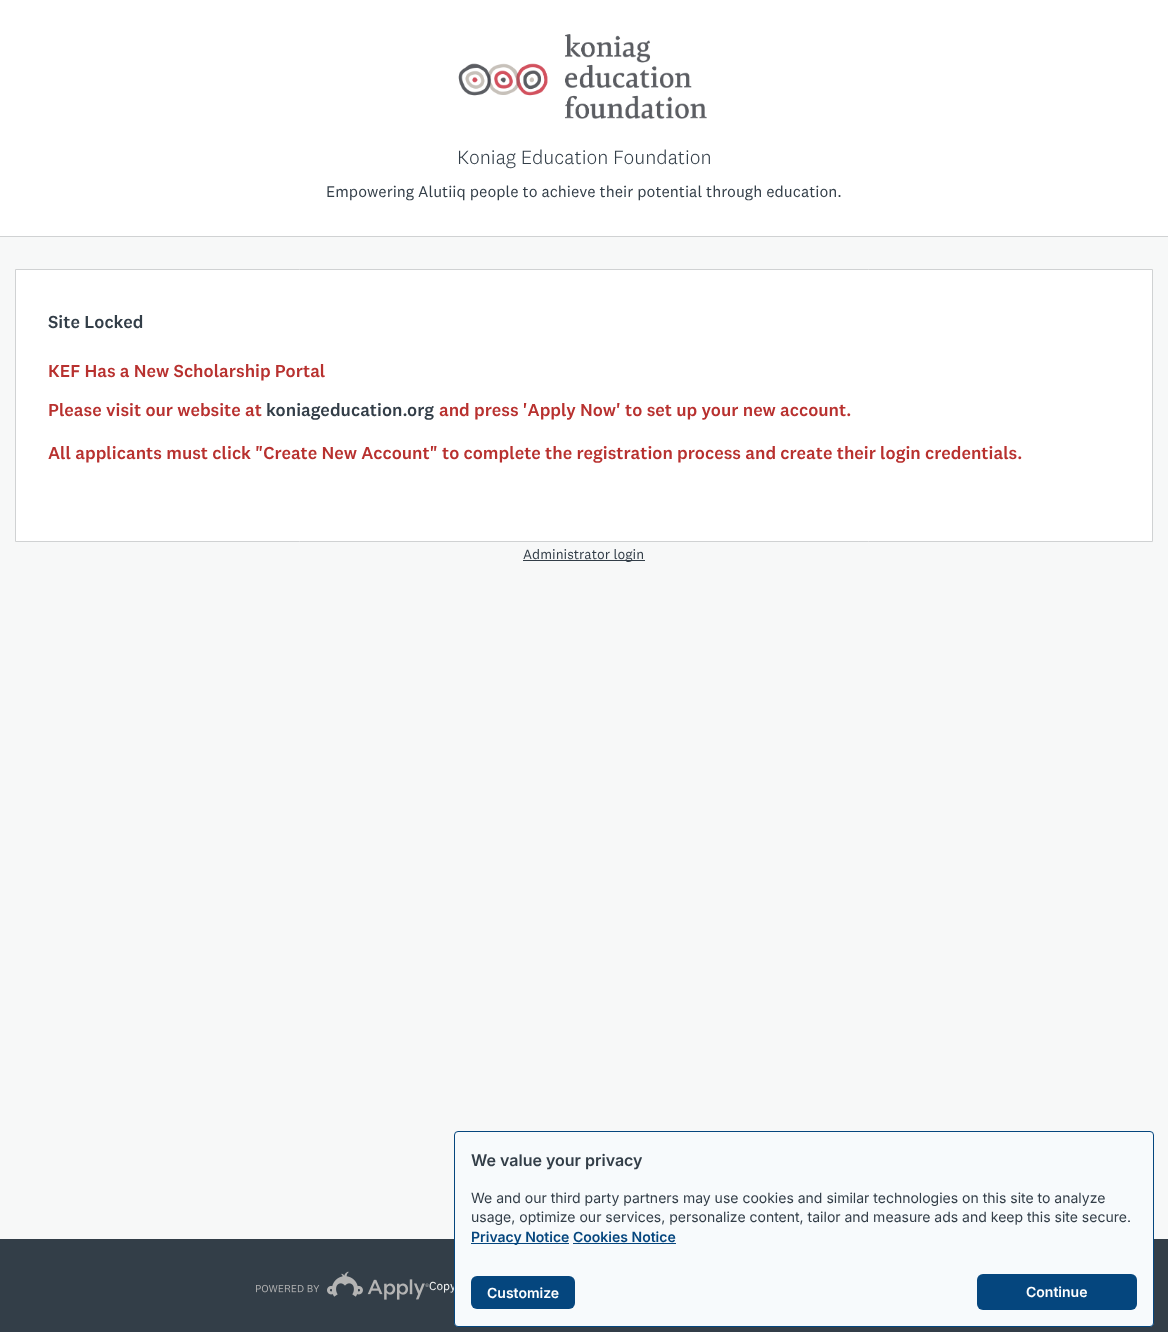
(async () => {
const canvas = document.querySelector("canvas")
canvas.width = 1168
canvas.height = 1332
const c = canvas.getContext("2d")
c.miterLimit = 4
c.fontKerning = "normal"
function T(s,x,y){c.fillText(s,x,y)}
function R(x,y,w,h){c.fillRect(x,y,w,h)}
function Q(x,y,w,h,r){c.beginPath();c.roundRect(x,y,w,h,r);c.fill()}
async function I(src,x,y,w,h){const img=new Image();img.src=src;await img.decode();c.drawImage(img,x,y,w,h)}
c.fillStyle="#f7f8f8"
R(0,0,1168,1332)
c.fillStyle="#fff"
R(0,0,1168,236)
c.fillStyle="#d0d2d3"
R(0,236,1168,1)
await I("1.png",458,34,249,85)
c.font="300 20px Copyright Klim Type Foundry"
c.fillStyle="#333e48"
T("Koniag Education Foundation",457,164)
c.font="16px Copyright Klim Type Foundry"
T("Empowering Alutiiq people to achieve their potential through education.",326,197)
c.fillStyle="#fff"
c.beginPath()
c.rect(15.5,269.5,1137,272)
c.fill()
c.strokeStyle="#d0d2d3"
c.stroke()
c.font="500 18px Copyright Klim Type Foundry"
c.fillStyle="#333e48"
T("Site Locked",48,328)
c.fillStyle="#b8312f"
T("KEF Has a New Scholarship Portal",48,377)
T("Please visit our website at",48,416)
c.fillStyle="#333e48"
T("koniageducation.org",266,416)
c.fillStyle="#b8312f"
T("and press 'Apply Now' to set up your new account.",439,416)
T("All applicants must click \"Create New Account\" to complete the registration process and create their login credentials.",48,459)
c.fillStyle="#333e48"
R(523,560,122,1)
c.font="14px Copyright Klim Type Foundry"
T("Administrator login",523,559)
R(0,1239,1168,93)
await I("2.png",256,1271,173,29)
c.font="12px Copyright Klim Type Foundry"
c.fillStyle="#f7f8f8"
T("Copy",429,1290)
c.fillStyle="#f7fafc"
c.beginPath()
c.roundRect(454.5,1131.5,699,195,3.5)
c.fill()
c.strokeStyle="#05467e"
c.stroke()
c.font="600 16px Inter"
c.fillStyle="#333e48"
T("We value your privacy",471,1166)
c.font="14px Inter"
T("We and our third party partners may use cookies and similar technologies on this site to analyze",471,1203)
T("usage, optimize our services, personalize content, tailor and measure ads and keep this site secure.",471,1222)
c.fillStyle="#05467e"
R(471,1243,98,1)
c.font="600 14px Inter"
T("Privacy Notice",471,1242)
T("Cookies Notice",573,1242)
R(573,1243,103,1)
Q(471,1276,104,33,6)
c.fillStyle="#fff"
T("Customize",487,1298)
c.fillStyle="#05467e"
Q(977,1274,160,36,6)
c.fillStyle="#fff"
T("Continue",1026,1297)
})()
